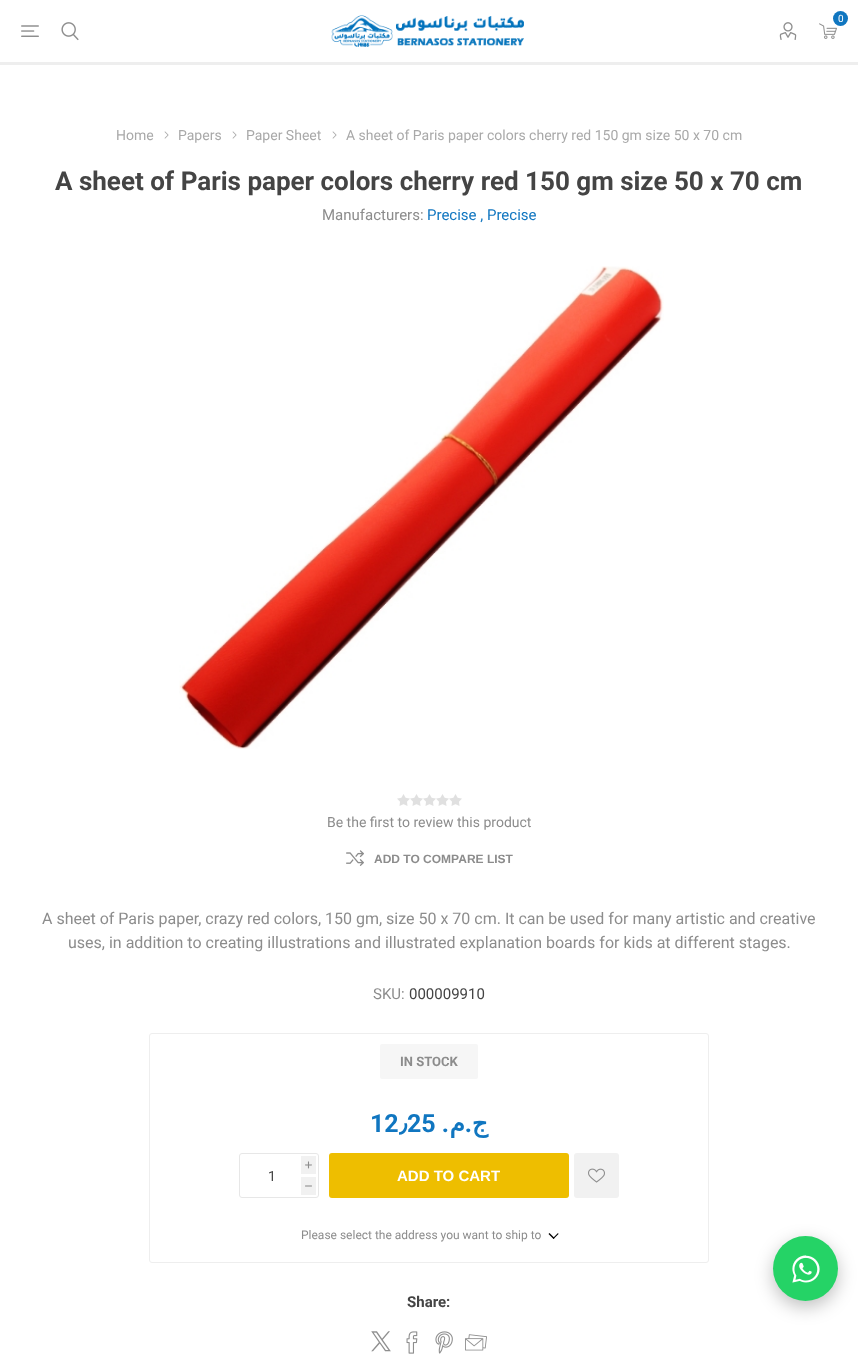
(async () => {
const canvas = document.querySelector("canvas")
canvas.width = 858
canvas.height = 1356
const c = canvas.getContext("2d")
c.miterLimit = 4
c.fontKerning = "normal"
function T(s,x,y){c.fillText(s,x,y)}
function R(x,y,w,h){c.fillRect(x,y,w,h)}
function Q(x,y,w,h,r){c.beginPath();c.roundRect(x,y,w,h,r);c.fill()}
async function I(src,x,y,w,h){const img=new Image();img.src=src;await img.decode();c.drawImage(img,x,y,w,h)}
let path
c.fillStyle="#fff"
R(0,0,858,1356)
c.fillStyle="#eee"
R(0,62,858,3)
await I("1.png",21,25,18,12)
await I("2.png",61,22,18,19)
await I("3.png",331,15,193,32)
await I("4.png",779,22,18,18)
await I("5.png",819,23,18,16)
c.fillStyle="#1076c0"
c.beginPath()
c.arc(840.5,18.5,7.5,0,7)
c.fill()
c.font="10px Roboto"
c.fillStyle="#fff"
T("0",838,22)
c.font="14px Roboto"
c.fillStyle="#a9a9a9"
T("Home",116,140)
await I("6.png",164,131,5,8)
T("Papers",178,140)
await I("6.png",232,131,5,8)
T("Paper Sheet",246,140)
await I("6.png",332,131,5,8)
T("A sheet of Paris paper colors cherry red 150 gm size 50 x 70 cm",346,140)
c.font="bold 26px Roboto"
c.fillStyle="#444"
T("A sheet of Paris paper colors cherry red 150 gm size 50 x 70 cm",55,190)
c.font="15px Roboto"
c.fillStyle="#8c8c8c"
T("Manufacturers:",322,220)
c.fillStyle="#1076c0"
T("Precise , Precise",427,220)
await I("7.png",179,266,485,483)
await I("8.png",397,794,65,12)
c.font="14px Roboto"
c.fillStyle="#8c8c8c"
T("Be the first to review this product",327,827)
await I("9.png",346,850,18,16)
c.font="bold 12px Liberation Sans"
T("ADD TO COMPARE LIST",374,863)
c.font="16px Roboto"
T("A sheet of Paris paper, crazy red colors, 150 gm, size 50 x 70 cm. It can be used for many artistic and creative",42,924)
T("uses, in addition to creating illustrations and illustrated explanation boards for kids at different stages.",68,948)
c.font="15px Roboto"
T("SKU:",373,999)
c.fillStyle="#444"
T("000009910",409,999)
c.beginPath()
c.roundRect(149.5,1033.5,559,229,2.5)
c.strokeStyle="#eee"
c.stroke()
c.fillStyle="#f6f6f6"
Q(380,1044,98,35,2)
c.font="bold 13px Roboto"
c.fillStyle="#8c8c8c"
T("IN STOCK",400,1066)
c.font="bold 25px Roboto"
c.fillStyle="#1076c0"
T("12",370,1132)
c.font="bold 25px DejaVu Sans"
T("٫",399,1132)
c.font="bold 25px Roboto"
T("25",407,1132)
c.direction="rtl"
T(".",449,1132)
c.font="bold 25px DejaVu Sans"
T("م",465,1132)
c.font="bold 25px Roboto"
T(".",472,1132)
c.font="bold 25px DejaVu Sans"
T("ج",488,1132)
c.beginPath()
c.roundRect(239.5,1153.5,79,44,2.5)
c.strokeStyle="#e7e7e7"
c.stroke()
c.fillStyle="#f1f1f1"
R(301,1156,15,18)
c.direction="ltr"
c.font="7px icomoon"
c.fillStyle="#8c8c8c"
T("i",305,1168)
c.font="14px Roboto"
c.fillStyle="#444"
T("1",268,1181)
c.fillStyle="#f1f1f1"
R(301,1177,15,18)
c.font="7px icomoon"
c.fillStyle="#8c8c8c"
T("h",305,1189)
c.fillStyle="#eebe00"
Q(329,1153,240,45,3)
c.font="bold 15px Liberation Sans"
c.fillStyle="#fff"
T("ADD TO CART",397,1181)
c.fillStyle="#f1f1f1"
Q(574,1153,45,45,3)
await I("10.png",588,1168,17,15)
c.font="12px Roboto"
c.fillStyle="#8c8c8c"
T("Please select the address you want to ship to",301,1239)
c.fillStyle="#000"
path = new Path2D("M558 1233l.5 1l-5 5l-.5-1z")
c.fill(path)
path = new Path2D("M549.5 1233l5 5l-1 1l-5-5z")
c.fill(path)
c.font="bold 15px Roboto"
c.fillStyle="#444"
T("Share:",407,1307)
await I("11.png",371,1331,20,21)
await I("12.png",406,1331,12,23)
await I("13.png",435,1331,18,23)
await I("14.png",465,1334,22,17)
c.fillStyle="#00000040"
c.filter="blur(9px)"
c.beginPath()
c.roundRect(773,1242,65,65,32.5)
c.fill()
c.filter="none"
c.fillStyle="#25d366"
c.beginPath()
c.arc(805.5,1268.5,32.5,0,7)
c.fill()
await I("15.png",792,1255,28,28)
})()
